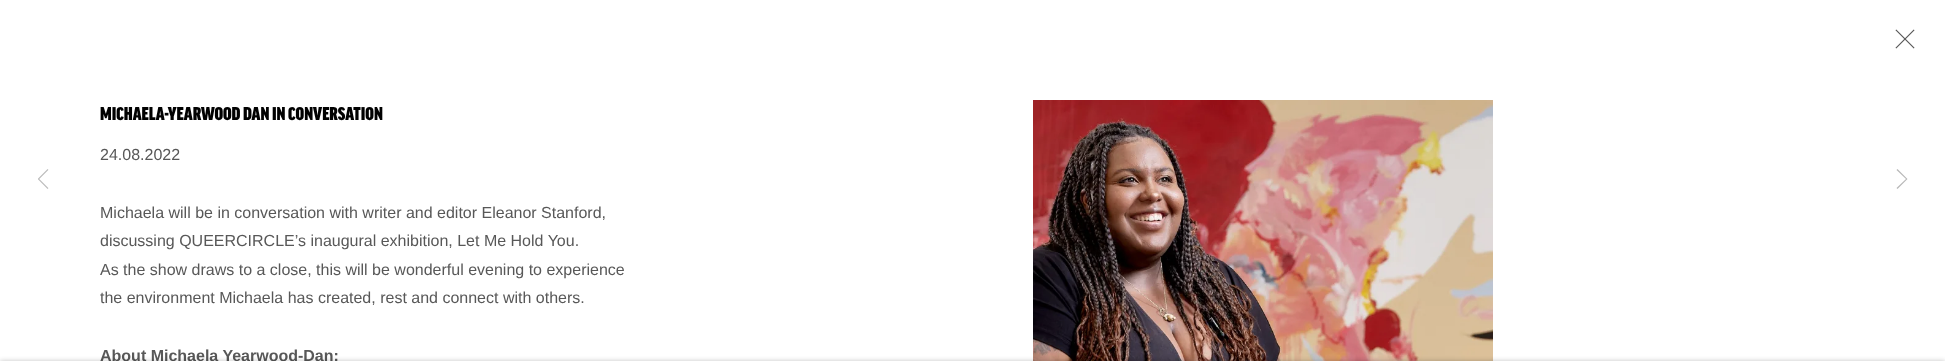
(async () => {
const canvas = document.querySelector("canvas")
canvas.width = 1945
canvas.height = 361
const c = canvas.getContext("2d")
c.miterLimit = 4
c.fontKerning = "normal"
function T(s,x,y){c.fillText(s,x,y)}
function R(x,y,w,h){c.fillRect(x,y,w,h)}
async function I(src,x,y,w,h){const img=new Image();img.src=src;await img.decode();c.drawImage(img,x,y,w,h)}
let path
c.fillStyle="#fff"
R(0,0,1945,361)
await I("1.png",1895,29,20,20)
c.font="900 19.75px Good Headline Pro"
c.fillStyle="#010101"
T("MICHAELA-YEARWOOD DAN IN CONVERSATION",100,120)
c.font="16px Liberation Sans"
c.fillStyle="#585858"
T("24.08.2022",100,160)
T("Michaela will be in conversation with writer and editor Eleanor Stanford,",100,218)
T("discussing QUEERCIRCLE’s inaugural exhibition, Let Me Hold You.",100,246)
T("As the show draws to a close, this will be wonderful evening to experience",100,275)
T("the environment Michaela has created, rest and connect with others.",100,303)
c.font="bold 16px Liberation Sans"
T("About Michaela Yearwood-Dan:",100,361)
await I("2.png",1033,100,460,261)
await I("3.png",38,169,11,20)
c.fillStyle="#b9b9b9"
path = new Path2D("M1907.5 179l-10-10l-1 1l9.5 9l-9.5 9l1 1z")
c.fill(path)
c.fillStyle="#0000003b"
c.filter="blur(2.5px)"
c.beginPath()
c.rect(0,361,1945,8)
c.fill()
c.filter="none"
})()
